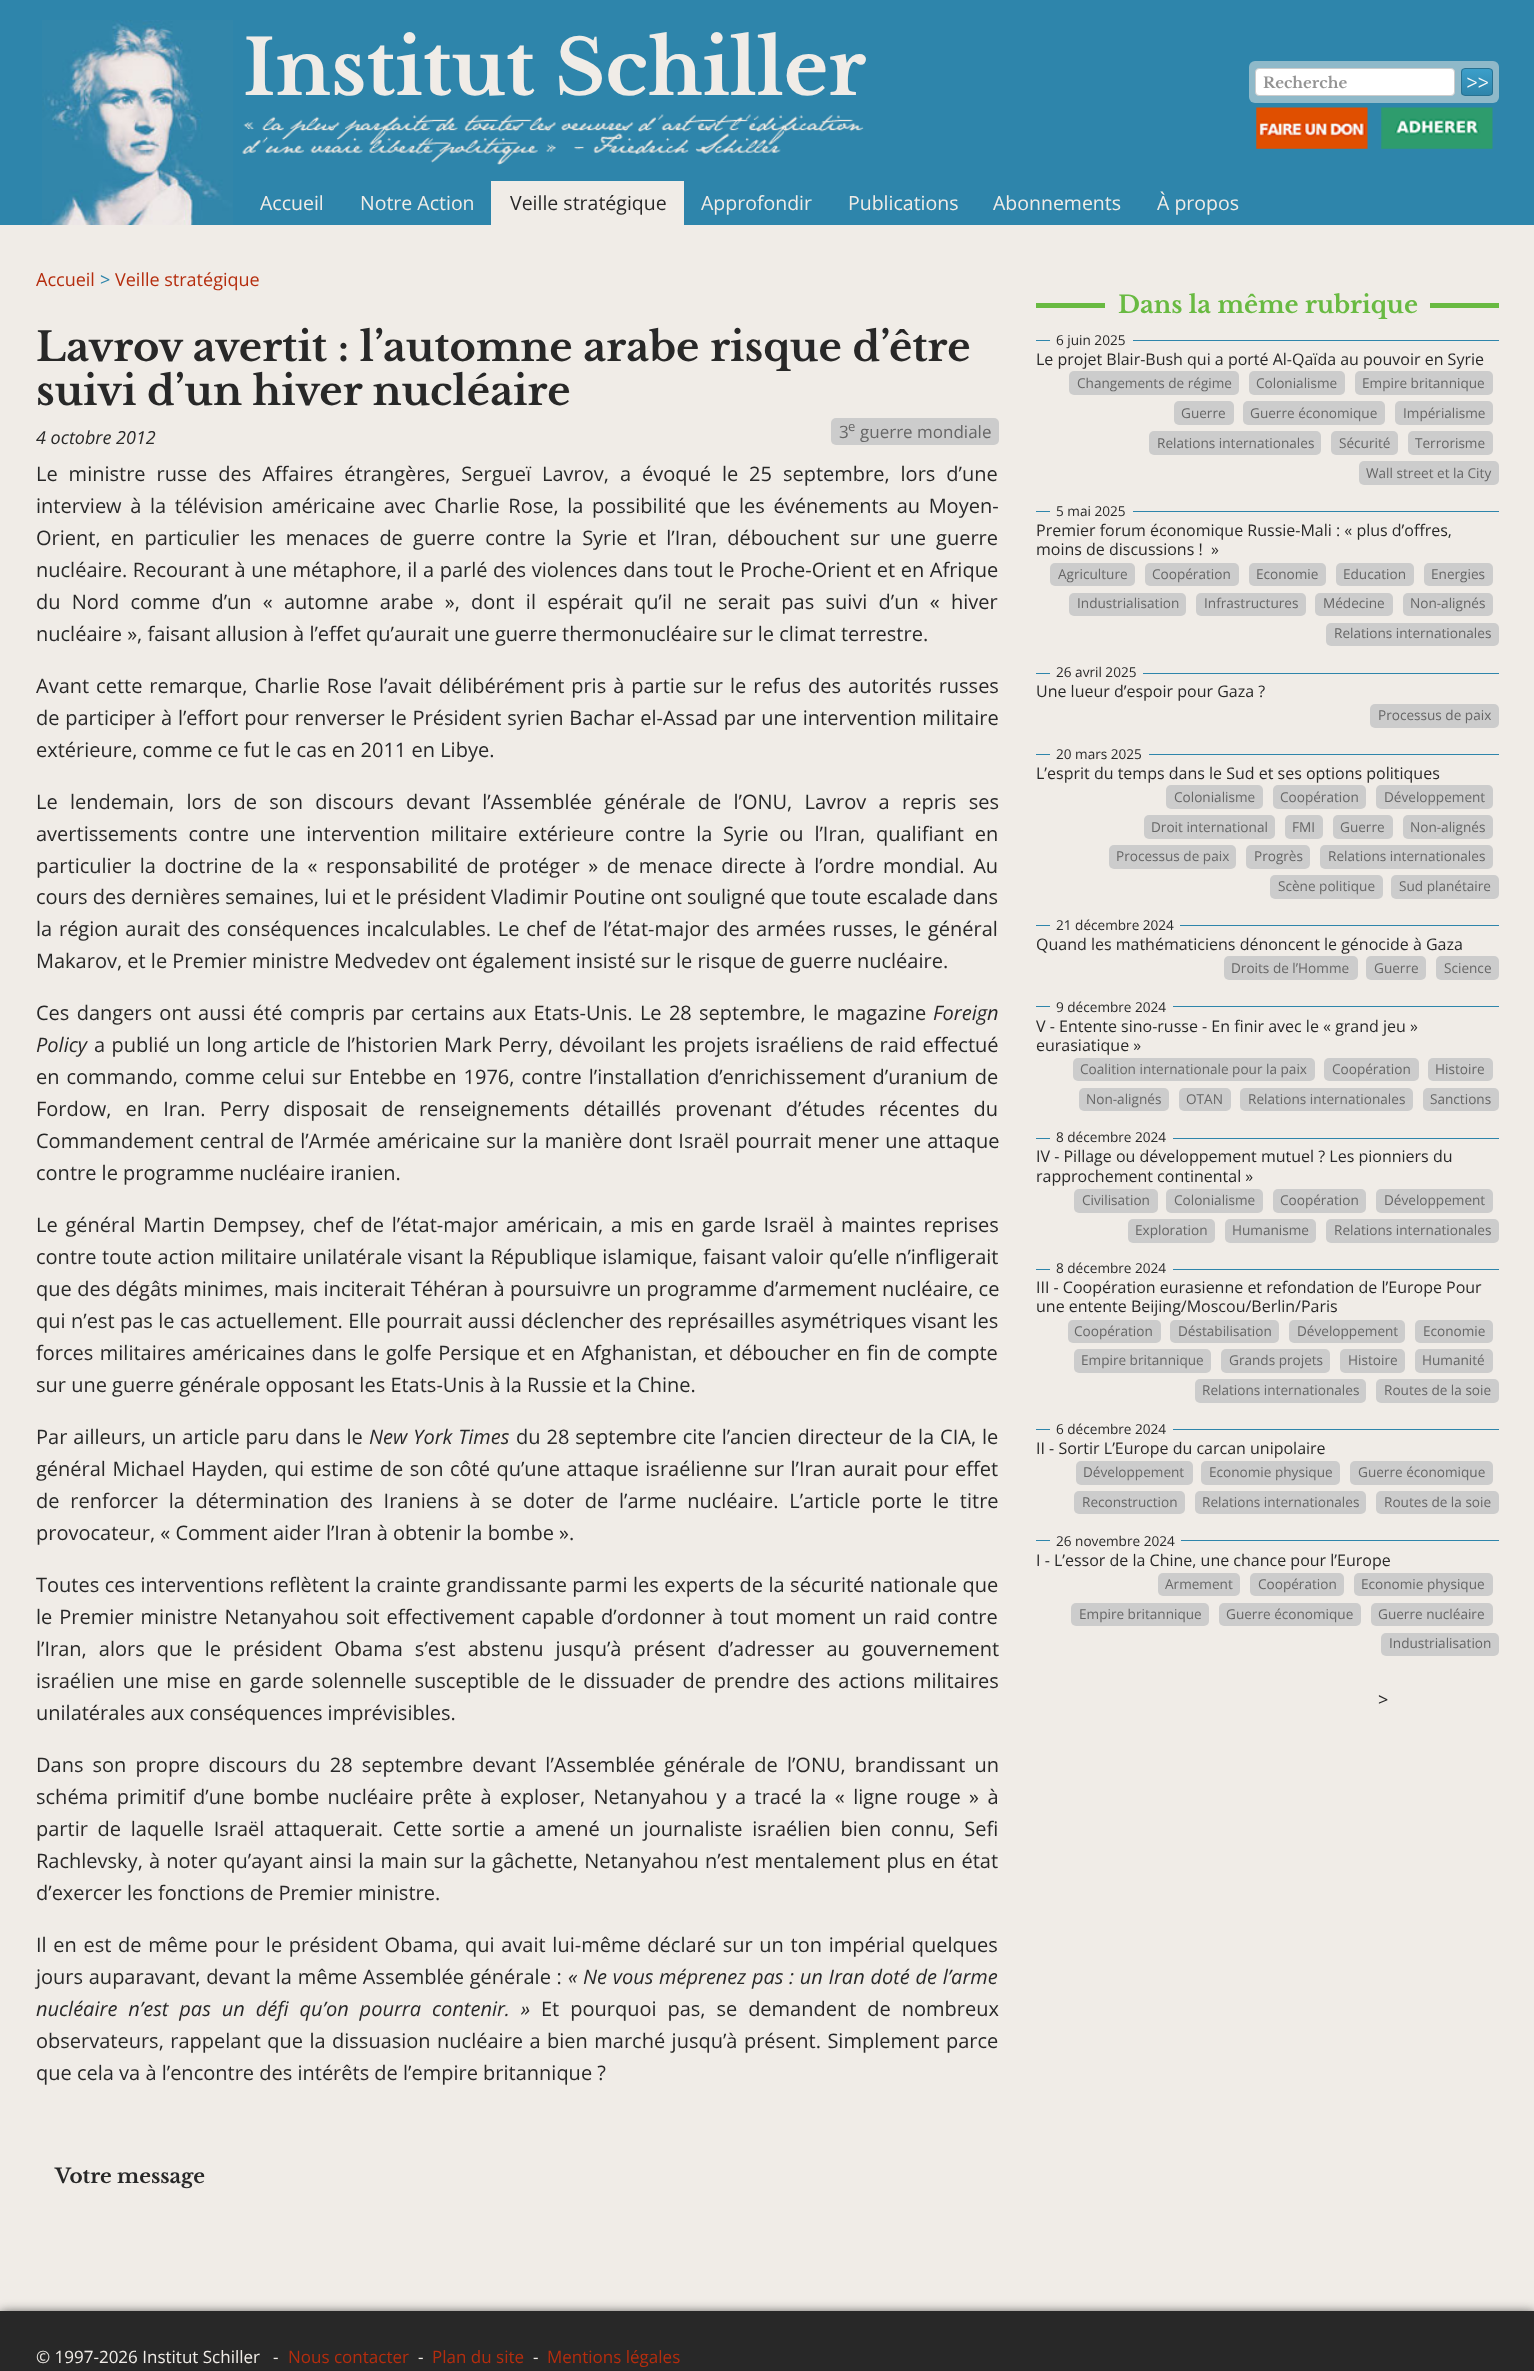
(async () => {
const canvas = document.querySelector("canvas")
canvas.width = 1534
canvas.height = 2371
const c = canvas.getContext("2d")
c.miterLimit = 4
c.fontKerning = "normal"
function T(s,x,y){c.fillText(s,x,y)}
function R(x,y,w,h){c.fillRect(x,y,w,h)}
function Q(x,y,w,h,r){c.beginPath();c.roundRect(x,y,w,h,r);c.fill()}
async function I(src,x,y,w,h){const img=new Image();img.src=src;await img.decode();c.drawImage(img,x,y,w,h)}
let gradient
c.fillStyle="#f0ece7"
R(0,0,1534,2371)
c.fillStyle="#2e85ab"
R(0,0,1534,225)
await I("1.png",42,20,191,205)
c.font="bold 76px Libre Baskerville"
c.fillStyle="#f0ece7"
T("Institut Schiller",243,95)
c.fillStyle="#8fb9c9"
Q(1249,61,250,42,6)
c.fillStyle="#fff"
c.beginPath()
c.roundRect(1255.5,68.5,199,27,3.5)
c.fill()
c.strokeStyle="#ccc"
c.stroke()
c.font="bold 15px Libre Baskerville"
c.fillStyle="#949494"
T("Recherche",1263,88)
c.save()
c.beginPath()
c.roundRect(1461,68,32,28,4)
c.clip()
gradient = c.createLinearGradient(1477,69,1477,95)
gradient.addColorStop(0,"#3b9fca")
gradient.addColorStop(1,"#2e85ab")
c.fillStyle = gradient
R(1461,69,32,26)
c.restore()
c.beginPath()
c.roundRect(1461.5,68.5,31,27,3.5)
c.strokeStyle="#277191"
c.stroke()
c.font="bold 19px Libre Baskerville"
c.fillStyle="#fafafa"
T(">>",1466,89)
await I("2.png",242,114,622,51)
await I("3.png",1256,107,112,42)
await I("4.png",1381,107,112,42)
c.font="19.5px Open Sans"
c.fillStyle="#f0ece7"
T("Accueil",260,210)
T("Notre Action",360,210)
R(491,181,193,44)
c.fillStyle="#282828"
T("Veille stratégique",510,210)
c.fillStyle="#f0ece7"
T("Approfondir",701,210)
T("Publications",848,210)
T("Abonnements",993,210)
T("À propos",1157,210)
c.font="18px Open Sans"
c.fillStyle="#b52d0e"
T("Accueil",36,286)
c.fillStyle="#2e85ab"
T(">",100,286)
c.fillStyle="#b52d0e"
T("Veille stratégique",115,286)
c.font="bold 40px Libre Baskerville"
c.fillStyle="#282828"
T("Lavrov avertit : l’automne arabe risque d’être",36,361)
T("suivi d’un hiver nucléaire",36,405)
c.font="italic 18px Open Sans"
T("4 octobre 2012",36,444)
c.fillStyle="#ccc"
Q(831,418,168,27,5)
c.font="17px Open Sans"
c.fillStyle="#666"
T("3",839,438)
c.font="13px Open Sans"
T("e",848,431)
c.font="17px Open Sans"
T("guerre mondiale",860,438)
c.wordSpacing="5.75px"
c.font="20px Open Sans"
c.fillStyle="#282828"
T("Le ministre russe des Affaires étrangères, Sergueï Lavrov, a évoqué le 25 septembre, lors d’une",36,481)
c.wordSpacing="3.4px"
T("interview à la télévision américaine avec Charlie Rose, la possibilité que les événements au Moyen-",36,513)
c.wordSpacing="5px"
T("Orient, en particulier les menaces de guerre contre la Syrie et l’Iran, débouchent sur une guerre",36,545)
c.wordSpacing="0.4px"
T("nucléaire. Recourant à une métaphore, il a parlé des violences dans tout le Proche-Orient et en Afrique",36,577)
c.wordSpacing="6px"
T("du Nord comme d’un « automne arabe », dont il espérait qu’il ne serait pas suivi d’un « hiver",36,609)
c.wordSpacing="0px"
T("nucléaire », faisant allusion à l’effet qu’aurait une guerre thermonucléaire sur le climat terrestre.",36,641)
c.wordSpacing="1.75px"
T("Avant cette remarque, Charlie Rose l’avait délibérément pris à partie sur le refus des autorités russes",36,693)
c.wordSpacing="0.6px"
T("de participer à l’effort pour renverser le Président syrien Bachar el-Assad par une intervention militaire",36,725)
c.wordSpacing="0px"
T("extérieure, comme ce fut le cas en 2011 en Libye.",36,757)
c.wordSpacing="7.1px"
T("Le lendemain, lors de son discours devant l’Assemblée générale de l’ONU, Lavrov a repris ses",36,809)
c.wordSpacing="5.6px"
T("avertissements contre une intervention militaire extérieure contre la Syrie ou l’Iran, qualifiant en",36,841)
c.wordSpacing="3.4px"
T("particulier la doctrine de la « responsabilité de protéger » de menace directe à l’ordre mondial. Au",36,873)
c.wordSpacing="0px"
T("cours des dernières semaines, lui et le président Vladimir Poutine ont souligné que toute escalade dans",36,904)
c.wordSpacing="1.6px"
T("la région aurait des conséquences incalculables. Le chef de l’état-major des armées russes, le général",36,936)
c.wordSpacing="0px"
T("Makarov, et le Premier ministre Medvedev ont également insisté sur le risque de guerre nucléaire.",36,968)
c.wordSpacing="2.1px"
T("Ces dangers ont aussi été compris par certains aux Etats-Unis. Le 28 septembre, le magazine",36,1020)
c.wordSpacing="0px"
c.font="italic 20px Open Sans"
T("Foreign",933,1020)
T("Policy",36,1052)
c.wordSpacing="1.1px"
c.font="20px Open Sans"
T("a publié un long article de l’historien Mark Perry, dévoilant les projets israéliens de raid effectué",94,1052)
c.wordSpacing="1.75px"
T("en commando, comme celui sur Entebbe en 1976, contre l’installation d’enrichissement d’uranium de",36,1084)
c.wordSpacing="8.9px"
T("Fordow, en Iran. Perry disposait de renseignements détaillés provenant d’études récentes du",36,1116)
c.wordSpacing="1px"
T("Commandement central de l’Armée américaine sur la manière dont Israël pourrait mener une attaque",36,1148)
c.wordSpacing="0px"
T("contre le programme nucléaire iranien.",36,1180)
c.wordSpacing="2.6px"
T("Le général Martin Dempsey, chef de l’état-major américain, a mis en garde Israël à maintes reprises",36,1232)
c.wordSpacing="0.5px"
T("contre toute action militaire unilatérale visant la République islamique, faisant valoir qu’elle n’infligerait",36,1264)
c.wordSpacing="0.25px"
T("que des dégâts minimes, mais inciterait Téhéran à poursuivre un programme d’armement nucléaire, ce",36,1296)
T("qui n’est pas le cas actuellement. Elle pourrait aussi déclencher des représailles asymétriques visant les",36,1328)
c.wordSpacing="1.3px"
T("forces militaires américaines dans le golfe Persique et en Afghanistan, et déboucher en fin de compte",36,1360)
c.wordSpacing="0px"
T("sur une guerre générale opposant les Etats-Unis à la Russie et la Chine.",36,1392)
c.wordSpacing="0.75px"
T("Par ailleurs, un article paru dans le",36,1444)
c.font="italic 20px Open Sans"
T("New York Times",369,1444)
c.font="20px Open Sans"
T("du 28 septembre cite l’ancien directeur de la CIA, le",516,1444)
c.wordSpacing="1.3px"
T("général Michael Hayden, qui estime de son côté qu’une attaque israélienne sur l’Iran aurait pour effet",36,1476)
c.wordSpacing="5.6px"
T("de renforcer la détermination des Iraniens à se doter de l’arme nucléaire. L’article porte le titre",36,1508)
c.wordSpacing="0px"
T("provocateur, « Comment aider l’Iran à obtenir la bombe ».",36,1540)
c.wordSpacing="0.25px"
T("Toutes ces interventions reflètent la crainte grandissante parmi les experts de la sécurité nationale que",36,1592)
c.wordSpacing="1.75px"
T("le Premier ministre Netanyahou soit effectivement capable d’ordonner à tout moment un raid contre",36,1624)
c.wordSpacing="6.9px"
T("l’Iran, alors que le président Obama s’est abstenu jusqu’à présent d’adresser au gouvernement",36,1656)
c.wordSpacing="2.75px"
T("israélien une mise en garde solennelle susceptible de le dissuader de prendre des actions militaires",36,1688)
c.wordSpacing="0px"
T("unilatérales aux conséquences imprévisibles.",36,1720)
c.wordSpacing="3.9px"
T("Dans son propre discours du 28 septembre devant l’Assemblée générale de l’ONU, brandissant un",36,1772)
c.wordSpacing="3.25px"
T("schéma primitif d’une bombe nucléaire prête à exploser, Netanyahou y a tracé la « ligne rouge » à",36,1804)
c.wordSpacing="4.5px"
T("partir de laquelle Israël attaquerait. Cette sortie a amené un journaliste israélien bien connu, Sefi",36,1836)
c.wordSpacing="1px"
T("Rachlevsky, à noter qu’ayant ainsi la main sur la gâchette, Netanyahou n’est mentalement plus en état",36,1868)
c.wordSpacing="0px"
T("d’exercer les fonctions de Premier ministre.",36,1900)
c.wordSpacing="1.5px"
T("Il en est de même pour le président Obama, qui avait lui-même déclaré sur un ton impérial quelques",36,1952)
c.wordSpacing="0.5px"
T("jours auparavant, devant la même Assemblée générale :",36,1984)
c.font="italic 20px Open Sans"
T("« Ne vous méprenez pas : un Iran doté de l’arme",568,1984)
c.wordSpacing="5.75px"
T("nucléaire n’est pas un défi qu’on pourra contenir. »",36,2016)
c.font="20px Open Sans"
T("Et pourquoi pas, se demandent de nombreux",541,2016)
c.wordSpacing="1.25px"
T("observateurs, rappelant que la dissuasion nucléaire a bien marché jusqu’à présent. Simplement parce",36,2048)
c.wordSpacing="0px"
T("que cela va à l’encontre des intérêts de l’empire britannique ?",36,2080)
c.font="bold 20px Libre Baskerville"
T("Votre message",55,2183)
c.fillStyle="#69ba42"
R(1036,303,463,5)
c.fillStyle="#f0ece7"
R(1105,303,325,5)
c.font="bold 24px Libre Baskerville"
c.fillStyle="#69ba42"
T("Dans la même rubrique",1118,313)
c.fillStyle="#2e85ab"
R(1036,340,463,1)
c.fillStyle="#f0ece7"
R(1050,340,83,1)
c.font="13.6px Open Sans"
c.fillStyle="#282828"
T("6 juin 2025",1056,345)
c.font="16px Open Sans"
T("Le projet Blair-Bush qui a porté Al-Qaïda au pouvoir en Syrie",1036,365)
c.fillStyle="#ccc"
Q(1069,371,170,24,5)
c.font="13.6px Open Sans"
c.fillStyle="#666"
T("Changements de régime",1077,388)
c.fillStyle="#ccc"
Q(1249,371,96,24,5)
c.fillStyle="#666"
T("Colonialisme",1256,388)
c.fillStyle="#ccc"
Q(1355,371,138,24,5)
c.fillStyle="#666"
T("Empire britannique",1362,388)
c.fillStyle="#ccc"
Q(1174,401,60,24,5)
c.fillStyle="#666"
T("Guerre",1181,418)
c.fillStyle="#ccc"
Q(1243,401,142,24,5)
c.fillStyle="#666"
T("Guerre économique",1250,418)
c.fillStyle="#ccc"
Q(1395,401,98,24,5)
c.fillStyle="#666"
T("Impérialisme",1403,418)
c.fillStyle="#ccc"
Q(1149,431,172,24,5)
c.fillStyle="#666"
T("Relations internationales",1157,448)
c.fillStyle="#ccc"
Q(1331,431,67,24,5)
c.fillStyle="#666"
T("Sécurité",1339,448)
c.fillStyle="#ccc"
Q(1408,431,85,24,5)
c.fillStyle="#666"
T("Terrorisme",1415,448)
c.fillStyle="#ccc"
Q(1359,461,140,24,5)
c.fillStyle="#666"
T("Wall street et la City",1366,478)
c.fillStyle="#2e85ab"
R(1036,511,463,1)
c.fillStyle="#f0ece7"
R(1050,511,83,1)
c.fillStyle="#282828"
T("5 mai 2025",1056,516)
c.font="16px Open Sans"
T("Premier forum économique Russie-Mali : « plus d’offres,",1036,536)
T("moins de discussions !  »",1036,555)
c.fillStyle="#ccc"
Q(1050,563,85,23,5)
c.font="13.6px Open Sans"
c.fillStyle="#666"
T("Agriculture",1058,579)
c.fillStyle="#ccc"
Q(1145,563,94,23,5)
c.fillStyle="#666"
T("Coopération",1152,579)
c.fillStyle="#ccc"
Q(1249,563,77,23,5)
c.fillStyle="#666"
T("Economie",1256,579)
c.fillStyle="#ccc"
Q(1336,563,78,23,5)
c.fillStyle="#666"
T("Education",1343,579)
c.fillStyle="#ccc"
Q(1424,563,69,23,5)
c.fillStyle="#666"
T("Energies",1431,579)
c.fillStyle="#ccc"
Q(1069,593,117,23,5)
c.fillStyle="#666"
T("Industrialisation",1077,608)
c.fillStyle="#ccc"
Q(1196,593,110,23,5)
c.fillStyle="#666"
T("Infrastructures",1204,608)
c.fillStyle="#ccc"
Q(1315,593,78,23,5)
c.fillStyle="#666"
T("Médecine",1323,608)
c.fillStyle="#ccc"
Q(1403,593,90,23,5)
c.fillStyle="#666"
T("Non-alignés",1410,608)
c.fillStyle="#ccc"
Q(1326,623,173,23,5)
c.fillStyle="#666"
T("Relations internationales",1334,638)
c.fillStyle="#2e85ab"
R(1036,673,463,1)
c.fillStyle="#f0ece7"
R(1050,673,93,1)
c.fillStyle="#282828"
T("26 avril 2025",1056,677)
c.font="16px Open Sans"
T("Une lueur d’espoir pour Gaza ?",1036,697)
c.fillStyle="#ccc"
Q(1370,704,129,24,5)
c.font="13.6px Open Sans"
c.fillStyle="#666"
T("Processus de paix",1378,720)
c.fillStyle="#2e85ab"
R(1036,754,463,1)
c.fillStyle="#f0ece7"
R(1050,754,99,1)
c.fillStyle="#282828"
T("20 mars 2025",1056,759)
c.font="16px Open Sans"
T("L’esprit du temps dans le Sud et ses options politiques",1036,779)
c.fillStyle="#ccc"
Q(1166,785,97,24,5)
c.font="13.6px Open Sans"
c.fillStyle="#666"
T("Colonialisme",1174,802)
c.fillStyle="#ccc"
Q(1273,785,93,24,5)
c.fillStyle="#666"
T("Coopération",1280,802)
c.fillStyle="#ccc"
Q(1376,785,117,24,5)
c.fillStyle="#666"
T("Développement",1384,802)
c.fillStyle="#ccc"
Q(1144,815,131,24,5)
c.fillStyle="#666"
T("Droit international",1151,832)
c.fillStyle="#ccc"
Q(1285,815,38,24,5)
c.fillStyle="#666"
T("FMI",1292,832)
c.fillStyle="#ccc"
Q(1333,815,60,24,5)
c.fillStyle="#666"
T("Guerre",1340,832)
c.fillStyle="#ccc"
Q(1403,815,90,24,5)
c.fillStyle="#666"
T("Non-alignés",1410,832)
c.fillStyle="#ccc"
Q(1109,845,127,24,5)
c.fillStyle="#666"
T("Processus de paix",1116,861)
c.fillStyle="#ccc"
Q(1246,845,64,24,5)
c.fillStyle="#666"
T("Progrès",1254,861)
c.fillStyle="#ccc"
Q(1320,845,173,24,5)
c.fillStyle="#666"
T("Relations internationales",1328,861)
c.fillStyle="#ccc"
Q(1270,875,113,24,5)
c.fillStyle="#666"
T("Scène politique",1278,891)
c.fillStyle="#ccc"
Q(1391,875,108,24,5)
c.fillStyle="#666"
T("Sud planétaire",1399,891)
c.fillStyle="#2e85ab"
R(1036,925,463,1)
c.fillStyle="#f0ece7"
R(1050,925,130,1)
c.fillStyle="#282828"
T("21 décembre 2024",1056,930)
c.font="16px Open Sans"
T("Quand les mathématiciens dénoncent le génocide à Gaza",1036,950)
c.fillStyle="#ccc"
Q(1224,956,134,24,5)
c.font="13.6px Open Sans"
c.fillStyle="#666"
T("Droits de l’Homme",1231,973)
c.fillStyle="#ccc"
Q(1366,956,60,24,5)
c.fillStyle="#666"
T("Guerre",1374,973)
c.fillStyle="#ccc"
Q(1436,956,63,24,5)
c.fillStyle="#666"
T("Science",1444,973)
c.fillStyle="#2e85ab"
R(1036,1006,463,1)
c.fillStyle="#f0ece7"
R(1050,1006,123,1)
c.fillStyle="#282828"
T("9 décembre 2024",1056,1012)
c.font="16px Open Sans"
T("V - Entente sino-russe - En finir avec le « grand jeu »",1036,1032)
T("eurasiatique »",1036,1051)
c.fillStyle="#ccc"
Q(1073,1058,242,23,5)
c.font="13.6px Open Sans"
c.fillStyle="#666"
T("Coalition internationale pour la paix",1080,1074)
c.fillStyle="#ccc"
Q(1324,1058,95,23,5)
c.fillStyle="#666"
T("Coopération",1332,1074)
c.fillStyle="#ccc"
Q(1428,1058,65,23,5)
c.fillStyle="#666"
T("Histoire",1435,1074)
c.fillStyle="#ccc"
Q(1079,1088,90,23,5)
c.fillStyle="#666"
T("Non-alignés",1086,1104)
c.fillStyle="#ccc"
Q(1179,1088,52,23,5)
c.fillStyle="#666"
T("OTAN",1186,1104)
c.fillStyle="#ccc"
Q(1240,1088,173,23,5)
c.fillStyle="#666"
T("Relations internationales",1248,1104)
c.fillStyle="#ccc"
Q(1423,1088,76,23,5)
c.fillStyle="#666"
T("Sanctions",1430,1104)
c.fillStyle="#2e85ab"
R(1036,1138,463,1)
c.fillStyle="#f0ece7"
R(1050,1138,123,1)
c.fillStyle="#282828"
T("8 décembre 2024",1056,1142)
c.font="16px Open Sans"
T("IV - Pillage ou développement mutuel ? Les pionniers du",1036,1162)
T("rapprochement continental »",1036,1182)
c.fillStyle="#ccc"
Q(1074,1189,84,24,5)
c.font="13.6px Open Sans"
c.fillStyle="#666"
T("Civilisation",1082,1205)
c.fillStyle="#ccc"
Q(1166,1189,97,24,5)
c.fillStyle="#666"
T("Colonialisme",1174,1205)
c.fillStyle="#ccc"
Q(1273,1189,93,24,5)
c.fillStyle="#666"
T("Coopération",1280,1205)
c.fillStyle="#ccc"
Q(1376,1189,117,24,5)
c.fillStyle="#666"
T("Développement",1384,1205)
c.fillStyle="#ccc"
Q(1128,1219,87,24,5)
c.fillStyle="#666"
T("Exploration",1135,1235)
c.fillStyle="#ccc"
Q(1225,1219,91,24,5)
c.fillStyle="#666"
T("Humanisme",1232,1235)
c.fillStyle="#ccc"
Q(1326,1219,173,24,5)
c.fillStyle="#666"
T("Relations internationales",1334,1235)
c.fillStyle="#2e85ab"
R(1036,1269,463,1)
c.fillStyle="#f0ece7"
R(1050,1269,123,1)
c.fillStyle="#282828"
T("8 décembre 2024",1056,1273)
c.font="16px Open Sans"
T("III - Coopération eurasienne et refondation de l’Europe Pour",1036,1293)
T("une entente Beijing/Moscou/Berlin/Paris",1036,1312)
c.fillStyle="#ccc"
Q(1068,1320,93,23,5)
c.font="13.6px Open Sans"
c.fillStyle="#666"
T("Coopération",1074,1336)
c.fillStyle="#ccc"
Q(1170,1320,109,23,5)
c.fillStyle="#666"
T("Déstabilisation",1178,1336)
c.fillStyle="#ccc"
Q(1289,1320,116,23,5)
c.fillStyle="#666"
T("Développement",1297,1336)
c.fillStyle="#ccc"
Q(1415,1320,78,23,5)
c.fillStyle="#666"
T("Economie",1423,1336)
c.fillStyle="#ccc"
Q(1074,1349,137,24,5)
c.fillStyle="#666"
T("Empire britannique",1081,1365)
c.fillStyle="#ccc"
Q(1221,1349,109,24,5)
c.fillStyle="#666"
T("Grands projets",1229,1365)
c.fillStyle="#ccc"
Q(1340,1349,65,24,5)
c.fillStyle="#666"
T("Histoire",1348,1365)
c.fillStyle="#ccc"
Q(1415,1349,78,24,5)
c.fillStyle="#666"
T("Humanité",1422,1365)
c.fillStyle="#ccc"
Q(1195,1379,171,24,5)
c.fillStyle="#666"
T("Relations internationales",1202,1395)
c.fillStyle="#ccc"
Q(1376,1379,123,24,5)
c.fillStyle="#666"
T("Routes de la soie",1384,1395)
c.fillStyle="#2e85ab"
R(1036,1429,463,1)
c.fillStyle="#f0ece7"
R(1050,1429,123,1)
c.fillStyle="#282828"
T("6 décembre 2024",1056,1434)
c.font="16px Open Sans"
T("II - Sortir L’Europe du carcan unipolaire",1036,1454)
c.fillStyle="#ccc"
Q(1076,1461,117,24,5)
c.font="13.6px Open Sans"
c.fillStyle="#666"
T("Développement",1083,1477)
c.fillStyle="#ccc"
Q(1201,1461,139,24,5)
c.fillStyle="#666"
T("Economie physique",1209,1477)
c.fillStyle="#ccc"
Q(1350,1461,143,24,5)
c.fillStyle="#666"
T("Guerre économique",1358,1477)
c.fillStyle="#ccc"
Q(1074,1491,111,23,5)
c.fillStyle="#666"
T("Reconstruction",1082,1507)
c.fillStyle="#ccc"
Q(1195,1491,171,23,5)
c.fillStyle="#666"
T("Relations internationales",1202,1507)
c.fillStyle="#ccc"
Q(1376,1491,123,23,5)
c.fillStyle="#666"
T("Routes de la soie",1384,1507)
c.fillStyle="#2e85ab"
R(1036,1540,463,1)
c.fillStyle="#f0ece7"
R(1050,1540,131,1)
c.fillStyle="#282828"
T("26 novembre 2024",1056,1546)
c.font="16px Open Sans"
T("I - L’essor de la Chine, une chance pour l’Europe",1036,1566)
c.fillStyle="#ccc"
Q(1158,1573,82,23,5)
c.font="13.6px Open Sans"
c.fillStyle="#666"
T("Armement",1165,1589)
c.fillStyle="#ccc"
Q(1250,1573,94,23,5)
c.fillStyle="#666"
T("Coopération",1258,1589)
c.fillStyle="#ccc"
Q(1354,1573,139,23,5)
c.fillStyle="#666"
T("Economie physique",1361,1589)
c.fillStyle="#ccc"
Q(1071,1603,138,23,5)
c.fillStyle="#666"
T("Empire britannique",1079,1619)
c.fillStyle="#ccc"
Q(1219,1603,142,23,5)
c.fillStyle="#666"
T("Guerre économique",1226,1619)
c.fillStyle="#ccc"
Q(1371,1603,122,23,5)
c.fillStyle="#666"
T("Guerre nucléaire",1378,1619)
c.fillStyle="#ccc"
Q(1381,1633,118,23,5)
c.fillStyle="#666"
T("Industrialisation",1389,1648)
c.font="18px Open Sans"
c.fillStyle="#282828"
T(">",1378,1706)
c.fillStyle="#333"
c.filter="blur(6px)"
c.beginPath()
c.rect(0,2313,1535,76)
c.fill()
c.filter="none"
c.fillStyle="#282828"
R(0,2311,1534,60)
c.font="17px Open Sans"
c.fillStyle="#f0ece7"
T("© 1997-2026 Institut Schiller",36,2363)
T("-",273,2363)
c.fillStyle="#b52d0e"
T("Nous contacter",288,2363)
c.fillStyle="#f0ece7"
T("-",418,2363)
c.fillStyle="#b52d0e"
T("Plan du site",432,2363)
c.fillStyle="#f0ece7"
T("-",533,2363)
c.fillStyle="#b52d0e"
T("Mentions légales",547,2363)
})()
